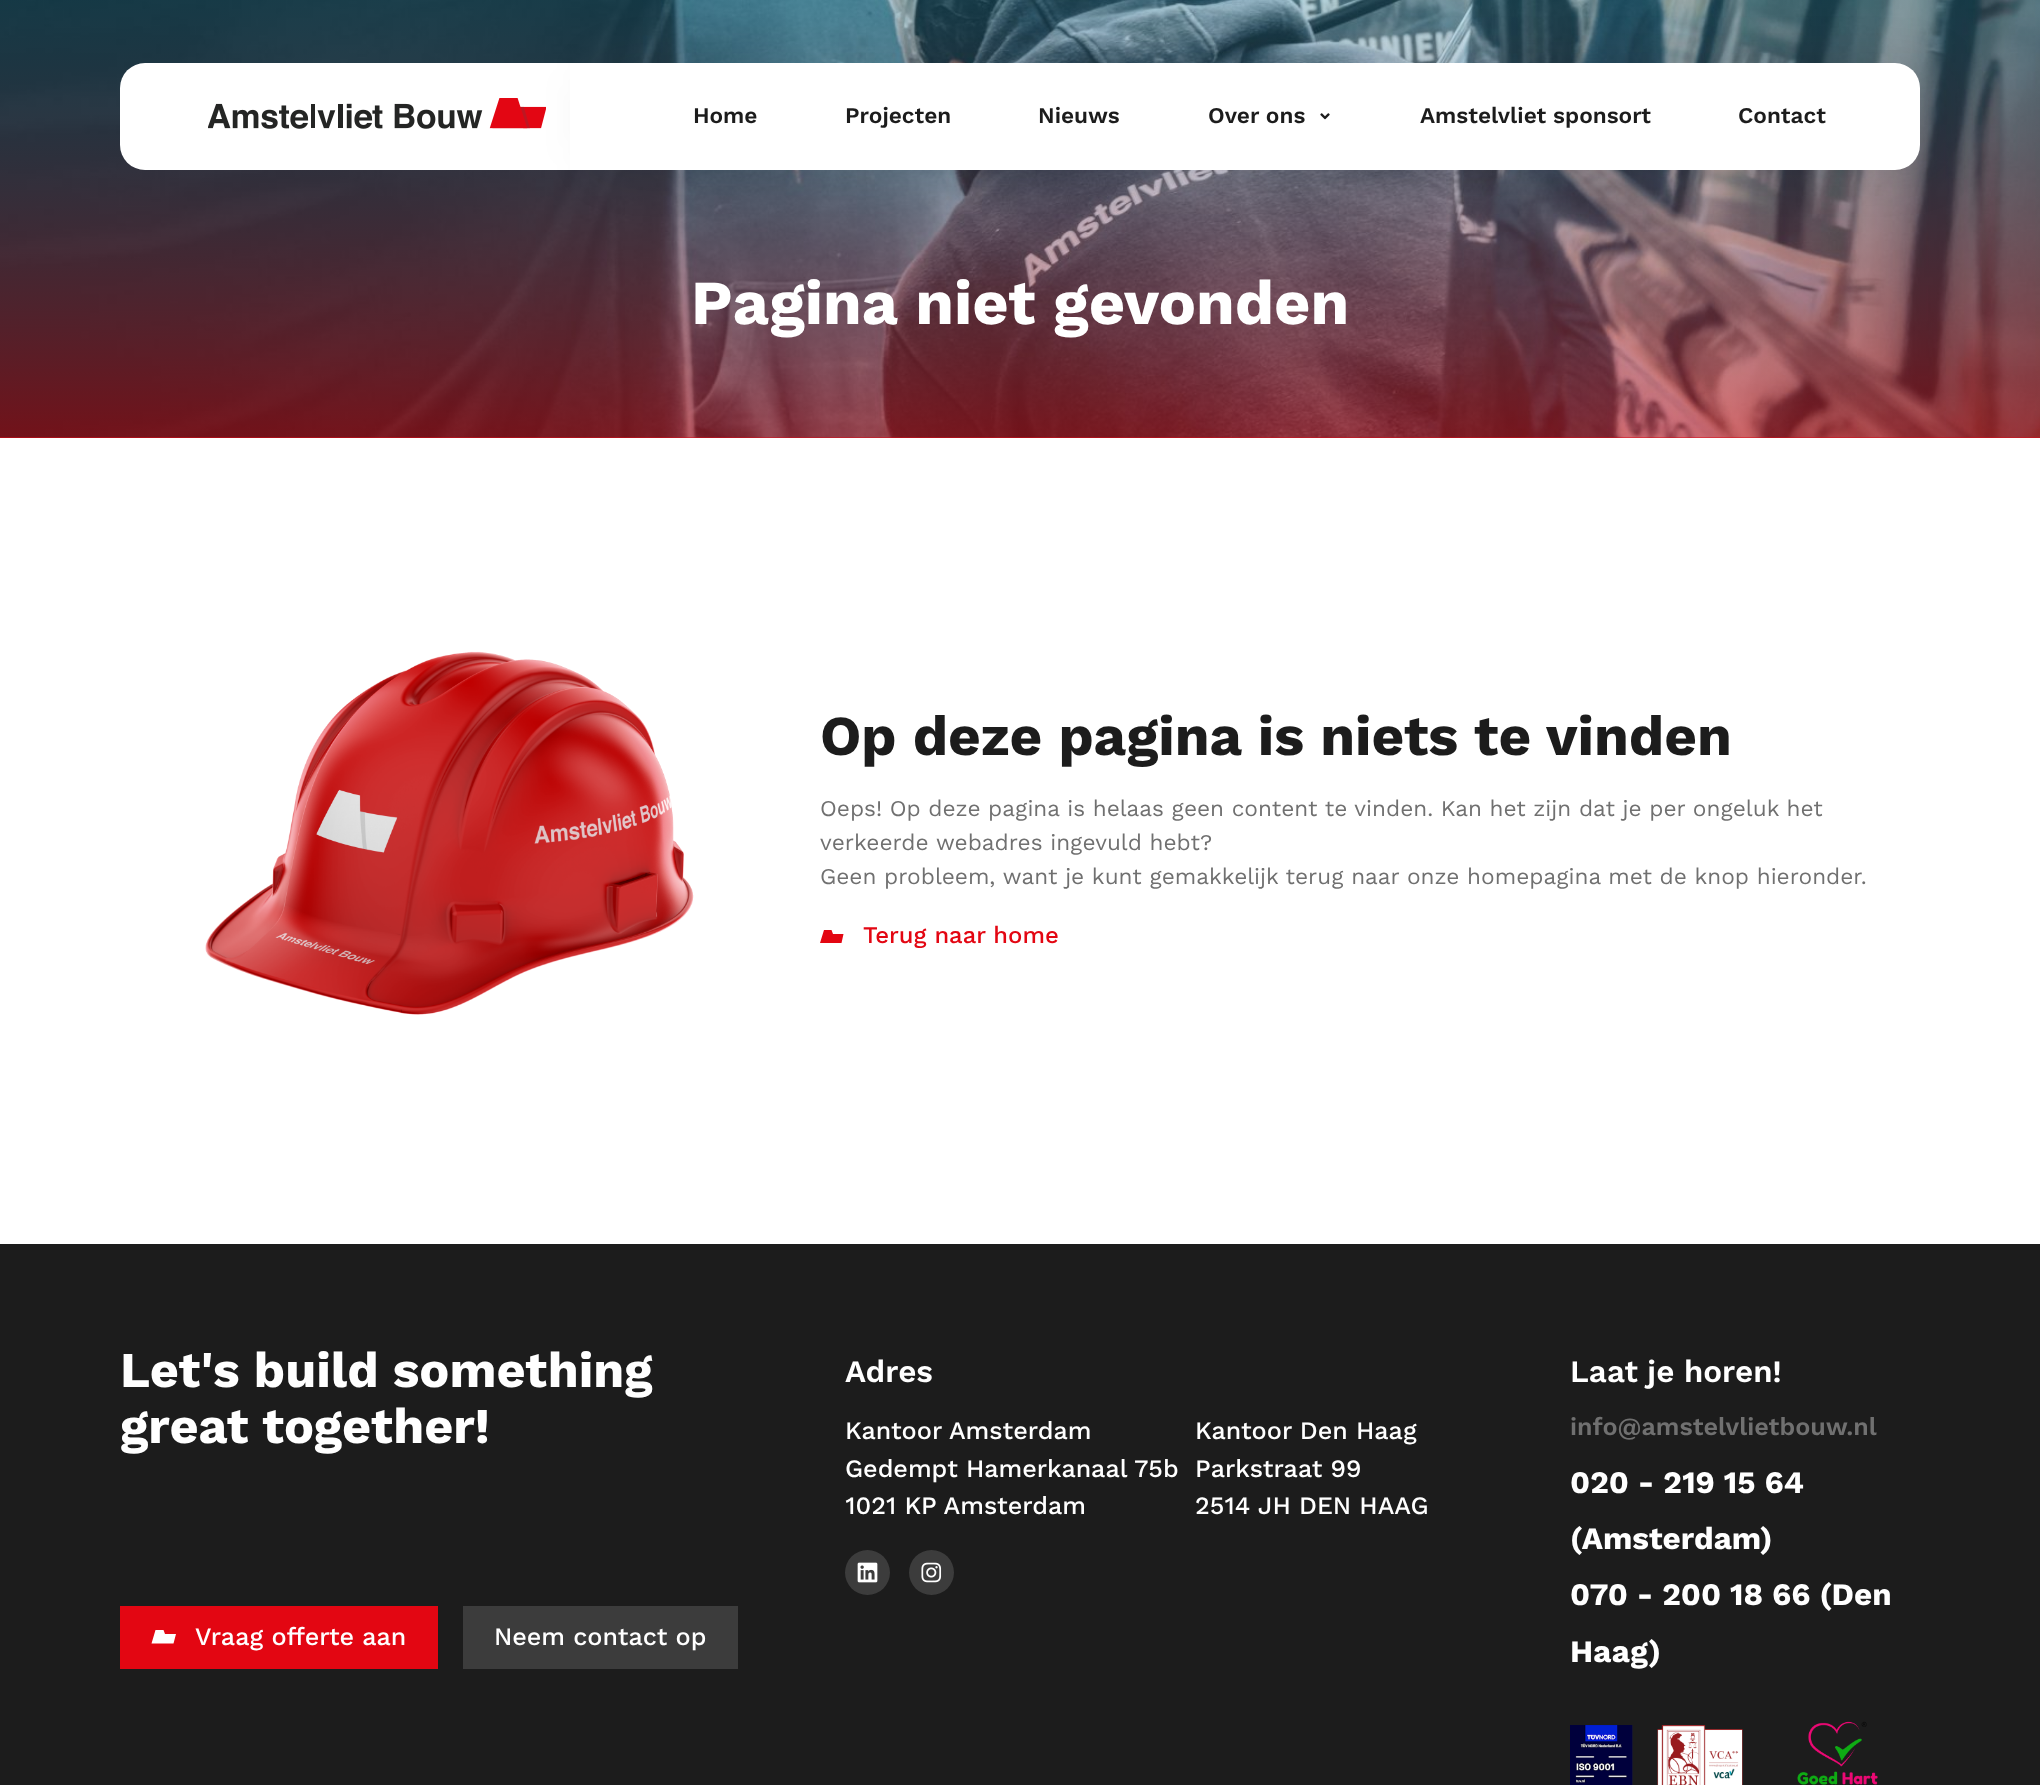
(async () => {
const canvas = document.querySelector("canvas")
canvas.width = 2040
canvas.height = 1785
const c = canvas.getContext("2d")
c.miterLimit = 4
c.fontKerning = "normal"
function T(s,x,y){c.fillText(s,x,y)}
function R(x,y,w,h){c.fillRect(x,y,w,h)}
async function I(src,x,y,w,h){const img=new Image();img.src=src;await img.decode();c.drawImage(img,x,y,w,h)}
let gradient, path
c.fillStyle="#fff"
R(0,0,2040,1785)
c.fillStyle="#e30612"
R(0,437,2040,1)
await I("3.png",0,0,2040,438)
gradient = c.createLinearGradient(1071,0,1071,460)
gradient.addColorStop(0,"#218bb347")
gradient.addColorStop(1,"#e3061280")
c.fillStyle = gradient
R(0,0,2040,438)
c.fillStyle="#fff"
c.beginPath()
c.roundRect(120,63,450,107,[25,0,0,25])
c.fill()
await I("1.png",208,98,338,31)
c.fillStyle="#00000017"
c.filter="blur(25px)"
c.beginPath()
c.roundRect(593,63,1350,107,25)
c.fill()
c.filter="none"
c.fillStyle="#fff"
c.beginPath()
c.roundRect(570,63,1350,107,[0,25,25,0])
c.fill()
c.font="600 22.5px Work Sans"
c.fillStyle="#1c1c1c"
T("Home",693,123)
T("Projecten",845,123)
T("Nieuws",1038,123)
T("Over ons",1208,123)
await I("2.png",1320,113,10,7)
T("Amstelvliet sponsort",1420,123)
T("Contact",1738,123)
c.font="bold 62.5px Work Sans"
c.fillStyle="#fff"
T("Pagina niet gevonden",691,324)
await I("4.png",205,651,489,364)
c.font="bold 56.25px Work Sans"
c.fillStyle="#1c1c1c"
T("Op deze pagina is niets te vinden",820,755)
c.font="22.5px Work Sans"
c.fillStyle="#707070"
T("Oeps! Op deze pagina is helaas geen content te vinden. Kan het zijn dat je per ongeluk het",820,816)
T("verkeerde webadres ingevuld hebt?",820,850)
T("Geen probleem, want je kunt gemakkelijk terug naar onze homepagina met de knop hieronder.",820,884)
c.fillStyle="#e30612"
path = new Path2D("M824 930l-4 13h21.5l2-9h-10.5l-1.5-4z")
c.fill(path)
c.font="500 23.75px Work Sans"
T("Terug naar home",863,943)
c.fillStyle="#1c1c1c"
R(0,1244,2040,541)
c.font="bold 50px Work Sans"
c.fillStyle="#fff"
T("Let's build something",120,1387)
T("great together!",120,1443)
c.fillStyle="#e30612"
R(120,1606,318,63)
c.fillStyle="#fff"
path = new Path2D("M155.5 1630l-4 13.5h22l2.5-9.5h-11l-1.5-4z")
c.fill(path)
c.font="500 25px Work Sans"
T("Vraag offerte aan",195,1645)
c.fillStyle="#3c3c3c"
R(463,1606,275,63)
c.fillStyle="#fff"
T("Neem contact op",494,1645)
c.font="600 31.25px Work Sans"
T("Adres",845,1382)
c.font="500 25px Work Sans"
T("Kantoor Amsterdam",845,1439)
T("Gedempt Hamerkanaal 75b",845,1477)
T("1021 KP Amsterdam",845,1514)
T("Kantoor Den Haag",1195,1439)
T("Parkstraat 99",1195,1477)
T("2514 JH DEN HAAG",1195,1514)
c.fillStyle="#3c3c3c"
c.beginPath()
c.arc(867.5,1572.5,22.5,0,7)
c.fill()
await I("5.png",857,1562,21,21)
c.beginPath()
c.arc(931.5,1572.5,22.5,0,7)
c.fill()
await I("6.png",921,1562,21,21)
c.font="600 31.25px Work Sans"
c.fillStyle="#fff"
T("Laat je horen!",1570,1382)
c.font="600 25px Work Sans"
c.fillStyle="#707070"
T("info@amstelvlietbouw.nl",1570,1435)
c.font="bold 31.25px Work Sans"
c.fillStyle="#fff"
T("020 - 219 15 64",1570,1493)
T("(Amsterdam)",1570,1549)
T("070 - 200 18 66 (Den",1570,1605)
T("Haag)",1570,1662)
await I("7.png",1570,1725,63,60)
await I("8.png",1657,1725,86,60)
await I("9.png",1797,1721,81,64)
})()
